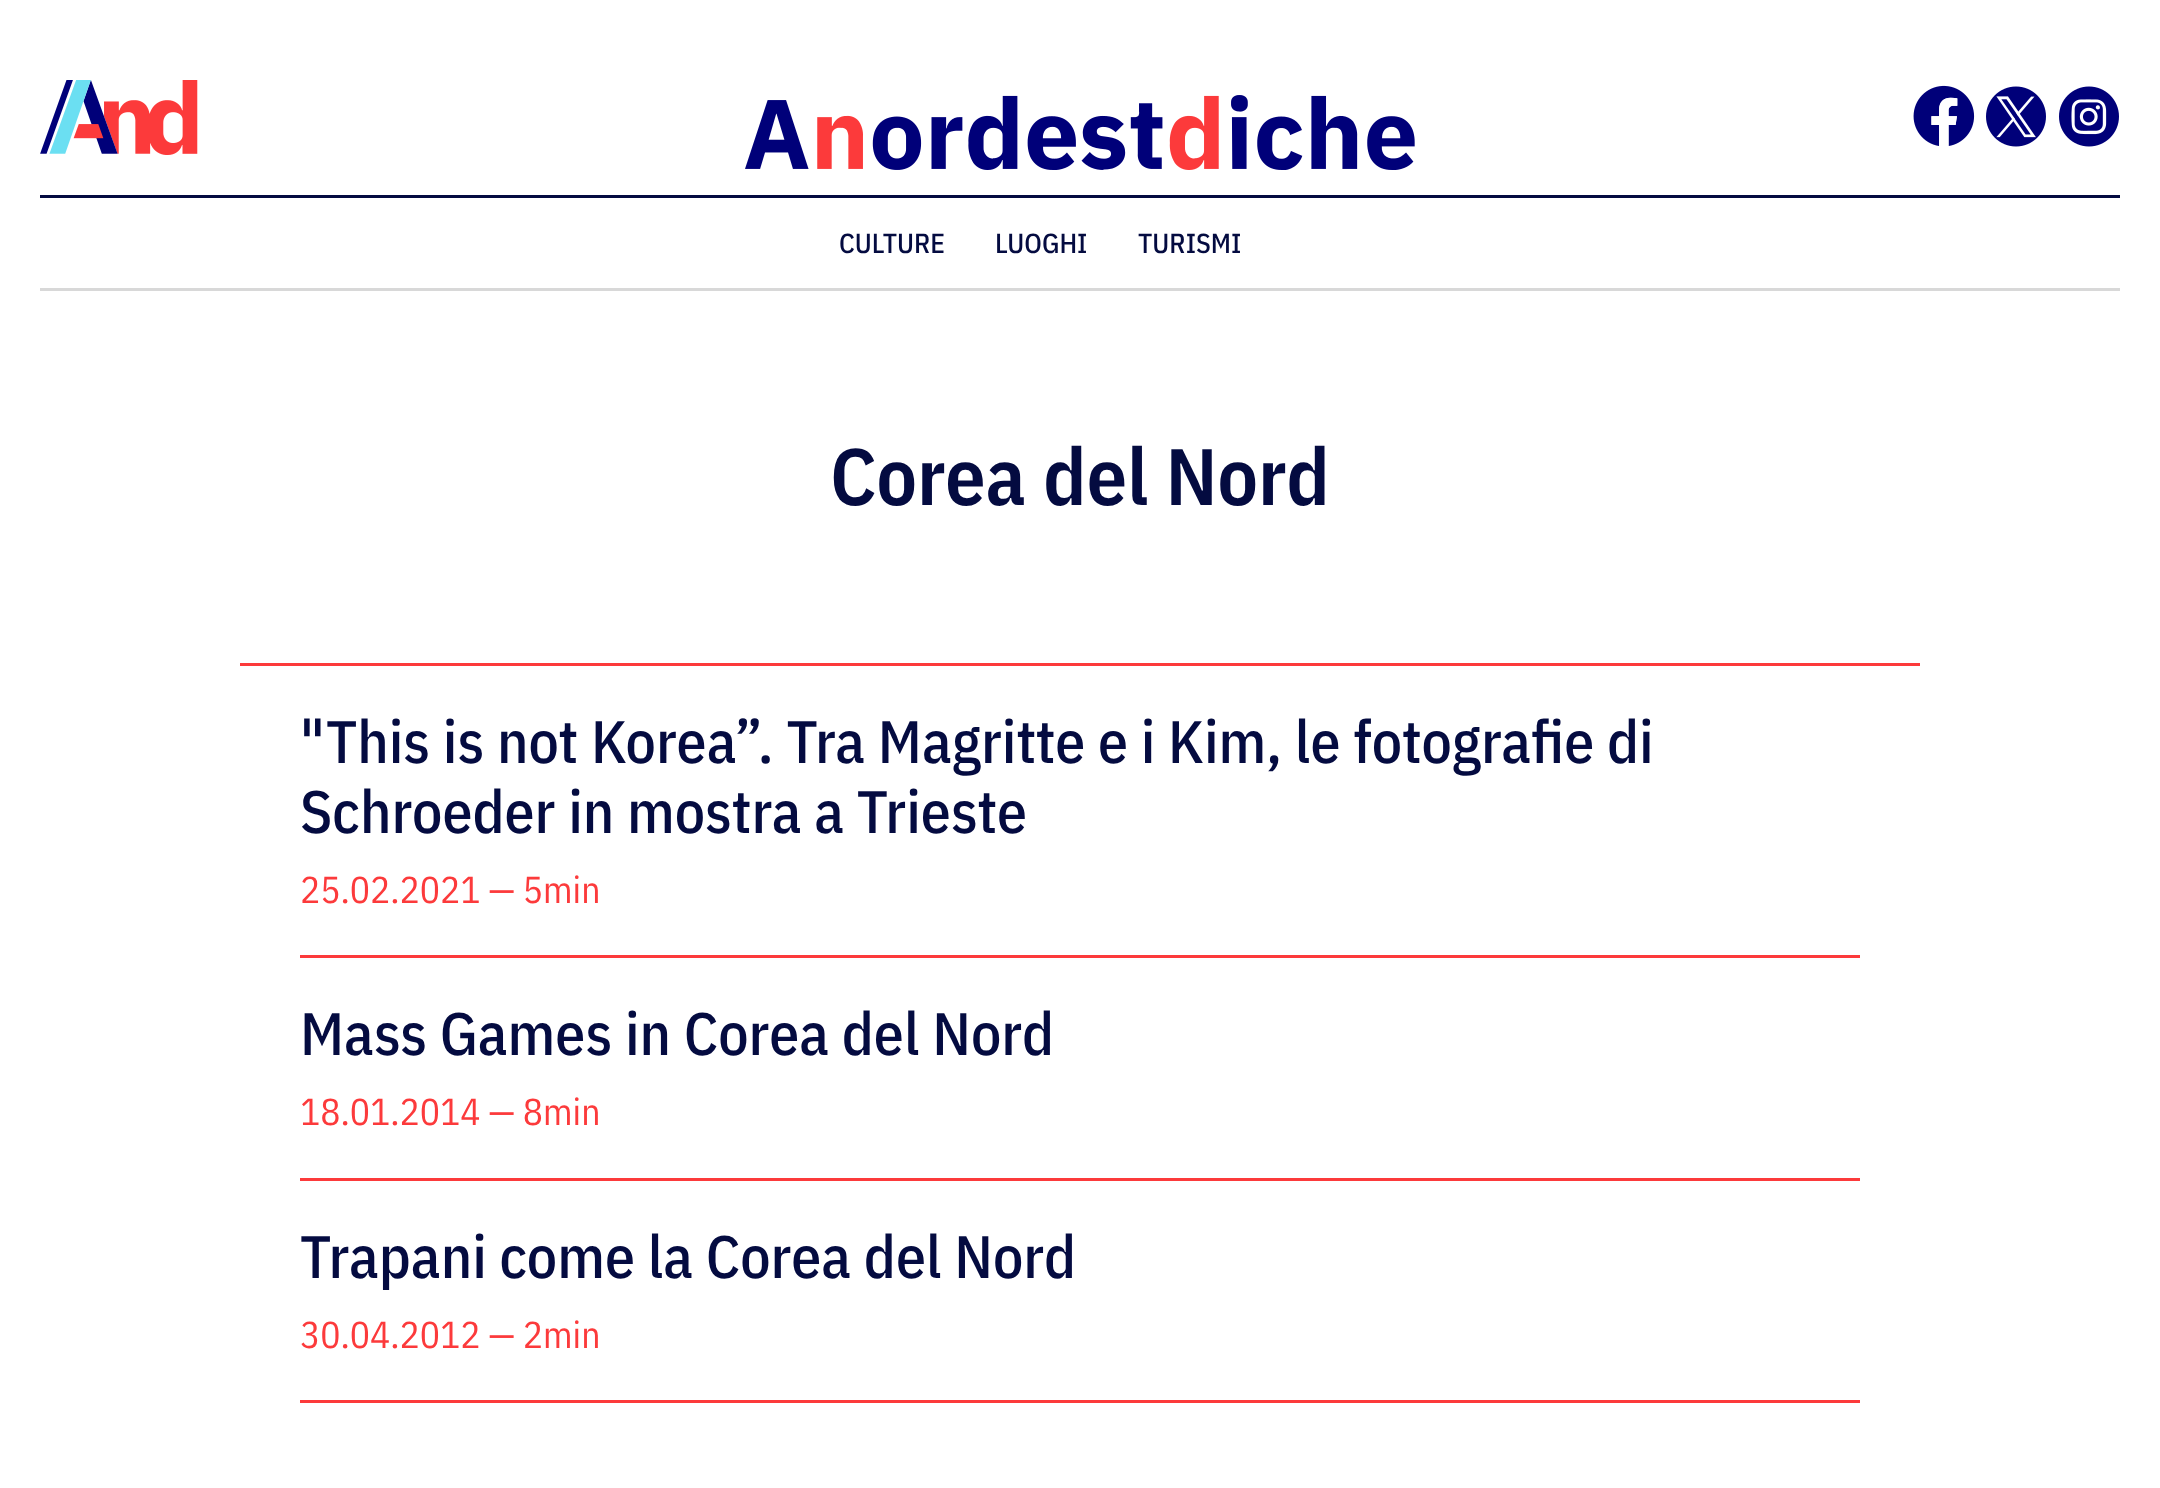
(async () => {
const canvas = document.querySelector("canvas")
canvas.width = 2160
canvas.height = 1488
const c = canvas.getContext("2d")
c.miterLimit = 4
c.fontKerning = "normal"
function T(s,x,y){c.fillText(s,x,y)}
function R(x,y,w,h){c.fillRect(x,y,w,h)}
async function I(src,x,y,w,h){const img=new Image();img.src=src;await img.decode();c.drawImage(img,x,y,w,h)}
c.fillStyle="#fff"
R(0,0,2160,1488)
c.fillStyle="#040b40"
R(40,195,2080,3)
await I("1.png",40,80,158,75)
await I("2.png",745,95,670,75)
await I("3.png",1913,85,62,61)
await I("4.png",1986,86,60,61)
await I("5.png",2059,86,60,61)
c.fillStyle="#d8d8d8"
R(40,288,2080,3)
c.font="500 27.5px IBM Plex Sans Condensed"
c.fillStyle="#040b40"
T("CULTURE",839,253)
T("LUOGHI",995,253)
T("TURISMI",1138,253)
c.font="600 80px IBM Plex Sans Condensed"
T("Corea del Nord",830,505)
c.fillStyle="#fc3a3b"
R(240,663,1680,3)
R(300,955,1560,3)
c.font="500 60px IBM Plex Sans Condensed"
c.fillStyle="#040b40"
T("\"This is not Korea”. Tra Magritte e i Kim, le fotografie di",300,763)
T("Schroeder in mostra a Trieste",300,833)
c.font="37.5px IBM Plex Sans Condensed"
c.fillStyle="#fc3a3b"
T("25.02.2021 — 5min",300,903)
R(300,1178,1560,3)
c.font="500 60px IBM Plex Sans Condensed"
c.fillStyle="#040b40"
T("Mass Games in Corea del Nord",300,1055)
c.font="37.5px IBM Plex Sans Condensed"
c.fillStyle="#fc3a3b"
T("18.01.2014 — 8min",300,1125)
R(300,1400,1560,3)
c.font="500 60px IBM Plex Sans Condensed"
c.fillStyle="#040b40"
T("Trapani come la Corea del Nord",300,1278)
c.font="37.5px IBM Plex Sans Condensed"
c.fillStyle="#fc3a3b"
T("30.04.2012 — 2min",300,1348)
})()
